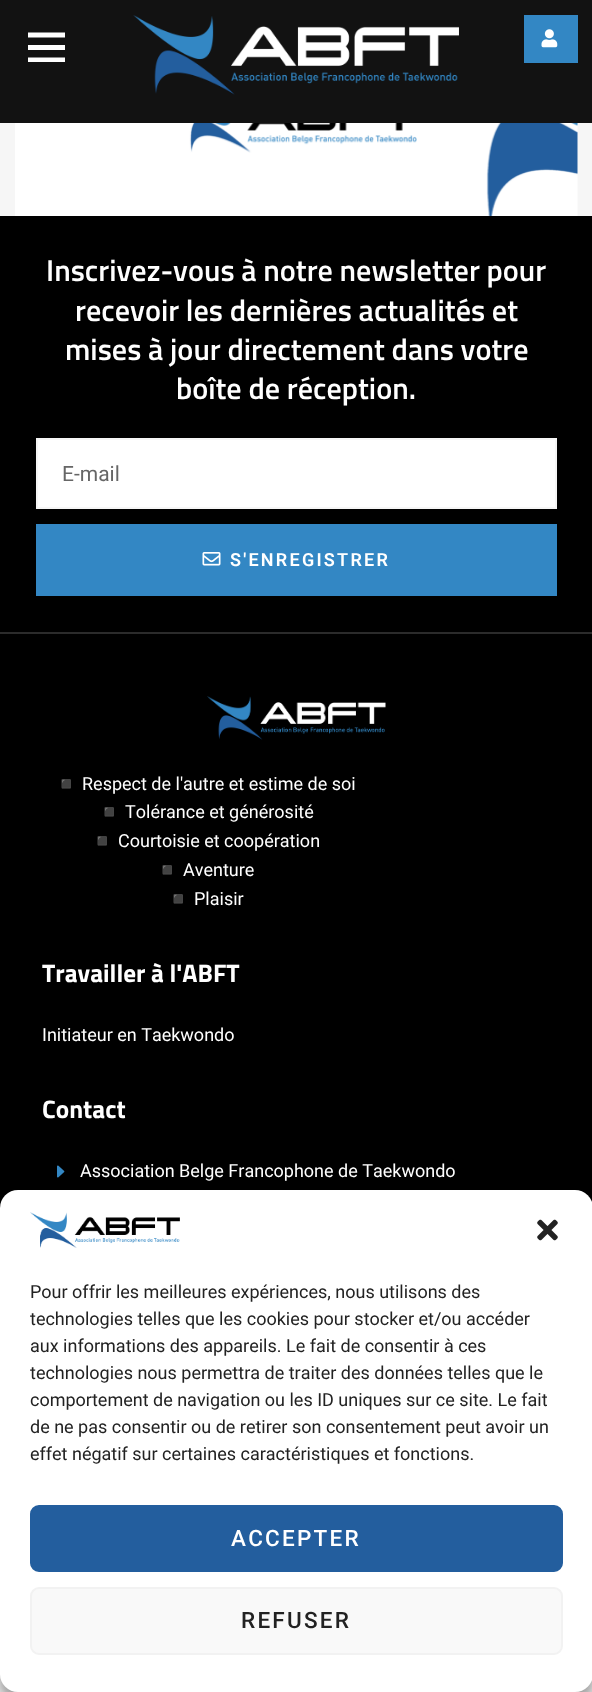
(async () => {
const canvas = document.querySelector("canvas")
canvas.width = 592
canvas.height = 1692
const c = canvas.getContext("2d")
c.miterLimit = 4
c.fontKerning = "none"
function T(s,x,y){c.fillText(s,x,y)}
function R(x,y,w,h){c.fillRect(x,y,w,h)}
function Q(x,y,w,h,r){c.beginPath();c.roundRect(x,y,w,h,r);c.fill()}
async function I(src,x,y,w,h){const img=new Image();img.src=src;await img.decode();c.drawImage(img,x,y,w,h)}
let path
c.fillStyle="#f6f6f6"
R(0,0,592,1692)
c.fillStyle="#121212"
R(0,0,592,123)
c.fillStyle="#fff"
path = new Path2D("M65 32.5v5h-37v-5zm-37 17.5h37v-5h-37zm0 12h37v-4.5h-37z")
c.fill(path)
await I("1.png",133,15,326,80)
c.fillStyle="#3387c4"
R(524,15,54,48)
await I("2.png",541,29,17,19)
await I("3.png",15,123,563,93)
c.fillStyle="#000"
R(0,216,592,992)
c.fillStyle="#2b2b2b"
R(0,632,592,2)
c.font="600 30.25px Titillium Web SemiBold"
c.fillStyle="#fff"
T("Inscrivez-vous à notre newsletter pour",46,281)
T("recevoir les dernières actualités et",75,321)
T("mises à jour directement dans votre",65,360)
T("boîte de réception.",176,399)
c.beginPath()
c.rect(37,439,519,69)
c.fill()
c.strokeStyle="#f6f6f6"
c.lineWidth=2
c.stroke()
c.font="21px Roboto"
c.fillStyle="#666"
T("E-mail",62,481)
c.fillStyle="#3387c4"
R(36,524,521,72)
await I("4.png",202,552,19,14)
c.letterSpacing="2.25px"
c.font="600 18px Roboto"
c.fillStyle="#fff"
T("S'ENREGISTRER",230,566)
await I("5.png",207,696,179,44)
c.letterSpacing="0px"
c.font="18px Noto Color Emoji"
T("◾",55,790)
c.font="18px Roboto"
T("Respect de l'autre et estime de soi",82,790)
c.font="18px Noto Color Emoji"
T("◾",98,818)
c.font="18px Roboto"
T("Tolérance et générosité",125,818)
c.font="18px Noto Color Emoji"
T("◾",91,847)
c.font="18px Roboto"
T("Courtoisie et coopération",118,847)
c.font="18px Noto Color Emoji"
T("◾",156,876)
c.font="18px Roboto"
T("Aventure",183,876)
c.font="18px Noto Color Emoji"
T("◾",167,905)
c.font="18px Roboto"
T("Plaisir",194,905)
c.font="bold 25.25px Titillium Web"
T("Travailler à l'ABFT",42,982)
c.font="18px Roboto"
T("Initiateur en Taekwondo",42,1041)
c.font="bold 25.25px Titillium Web"
T("Contact",42,1118)
await I("6.png",57,1165,8,13)
c.font="18px Roboto"
T("Association Belge Francophone de Taekwondo",80,1177)
c.fillStyle="#0000003b"
c.filter="blur(4.5px)"
c.beginPath()
c.roundRect(0,1199,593,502,18)
c.fill()
c.filter="none"
c.fillStyle="#00000030"
c.filter="blur(15px)"
c.beginPath()
c.roundRect(0,1205,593,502,18)
c.fill()
c.filter="none"
c.fillStyle="#fff"
Q(0,1190,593,502,18)
await I("7.png",30,1212,150,36)
await I("8.png",537,1219,21,22)
c.fillStyle="#222"
T("Pour offrir les meilleures expériences, nous utilisons des",30,1298)
T("technologies telles que les cookies pour stocker et/ou accéder",30,1325)
T("aux informations des appareils. Le fait de consentir à ces",30,1352)
T("technologies nous permettra de traiter des données telles que le",30,1379)
T("comportement de navigation ou les ID uniques sur ce site. Le fait",30,1406)
T("de ne pas consentir ou de retirer son consentement peut avoir un",30,1433)
T("effet négatif sur certaines caractéristiques et fonctions.",30,1460)
c.fillStyle="#235e9e"
c.beginPath()
c.roundRect(31,1506,531,65,8)
c.fill()
c.strokeStyle="#235e9e"
c.stroke()
c.letterSpacing="2.25px"
c.font="500 22.5px Roboto"
c.fillStyle="#fff"
T("ACCEPTER",231,1546)
c.fillStyle="#f9f9f9"
c.beginPath()
c.roundRect(31,1588,531,66,8)
c.fill()
c.strokeStyle="#f2f2f2"
c.stroke()
c.fillStyle="#222"
T("REFUSER",241,1628)
})()
